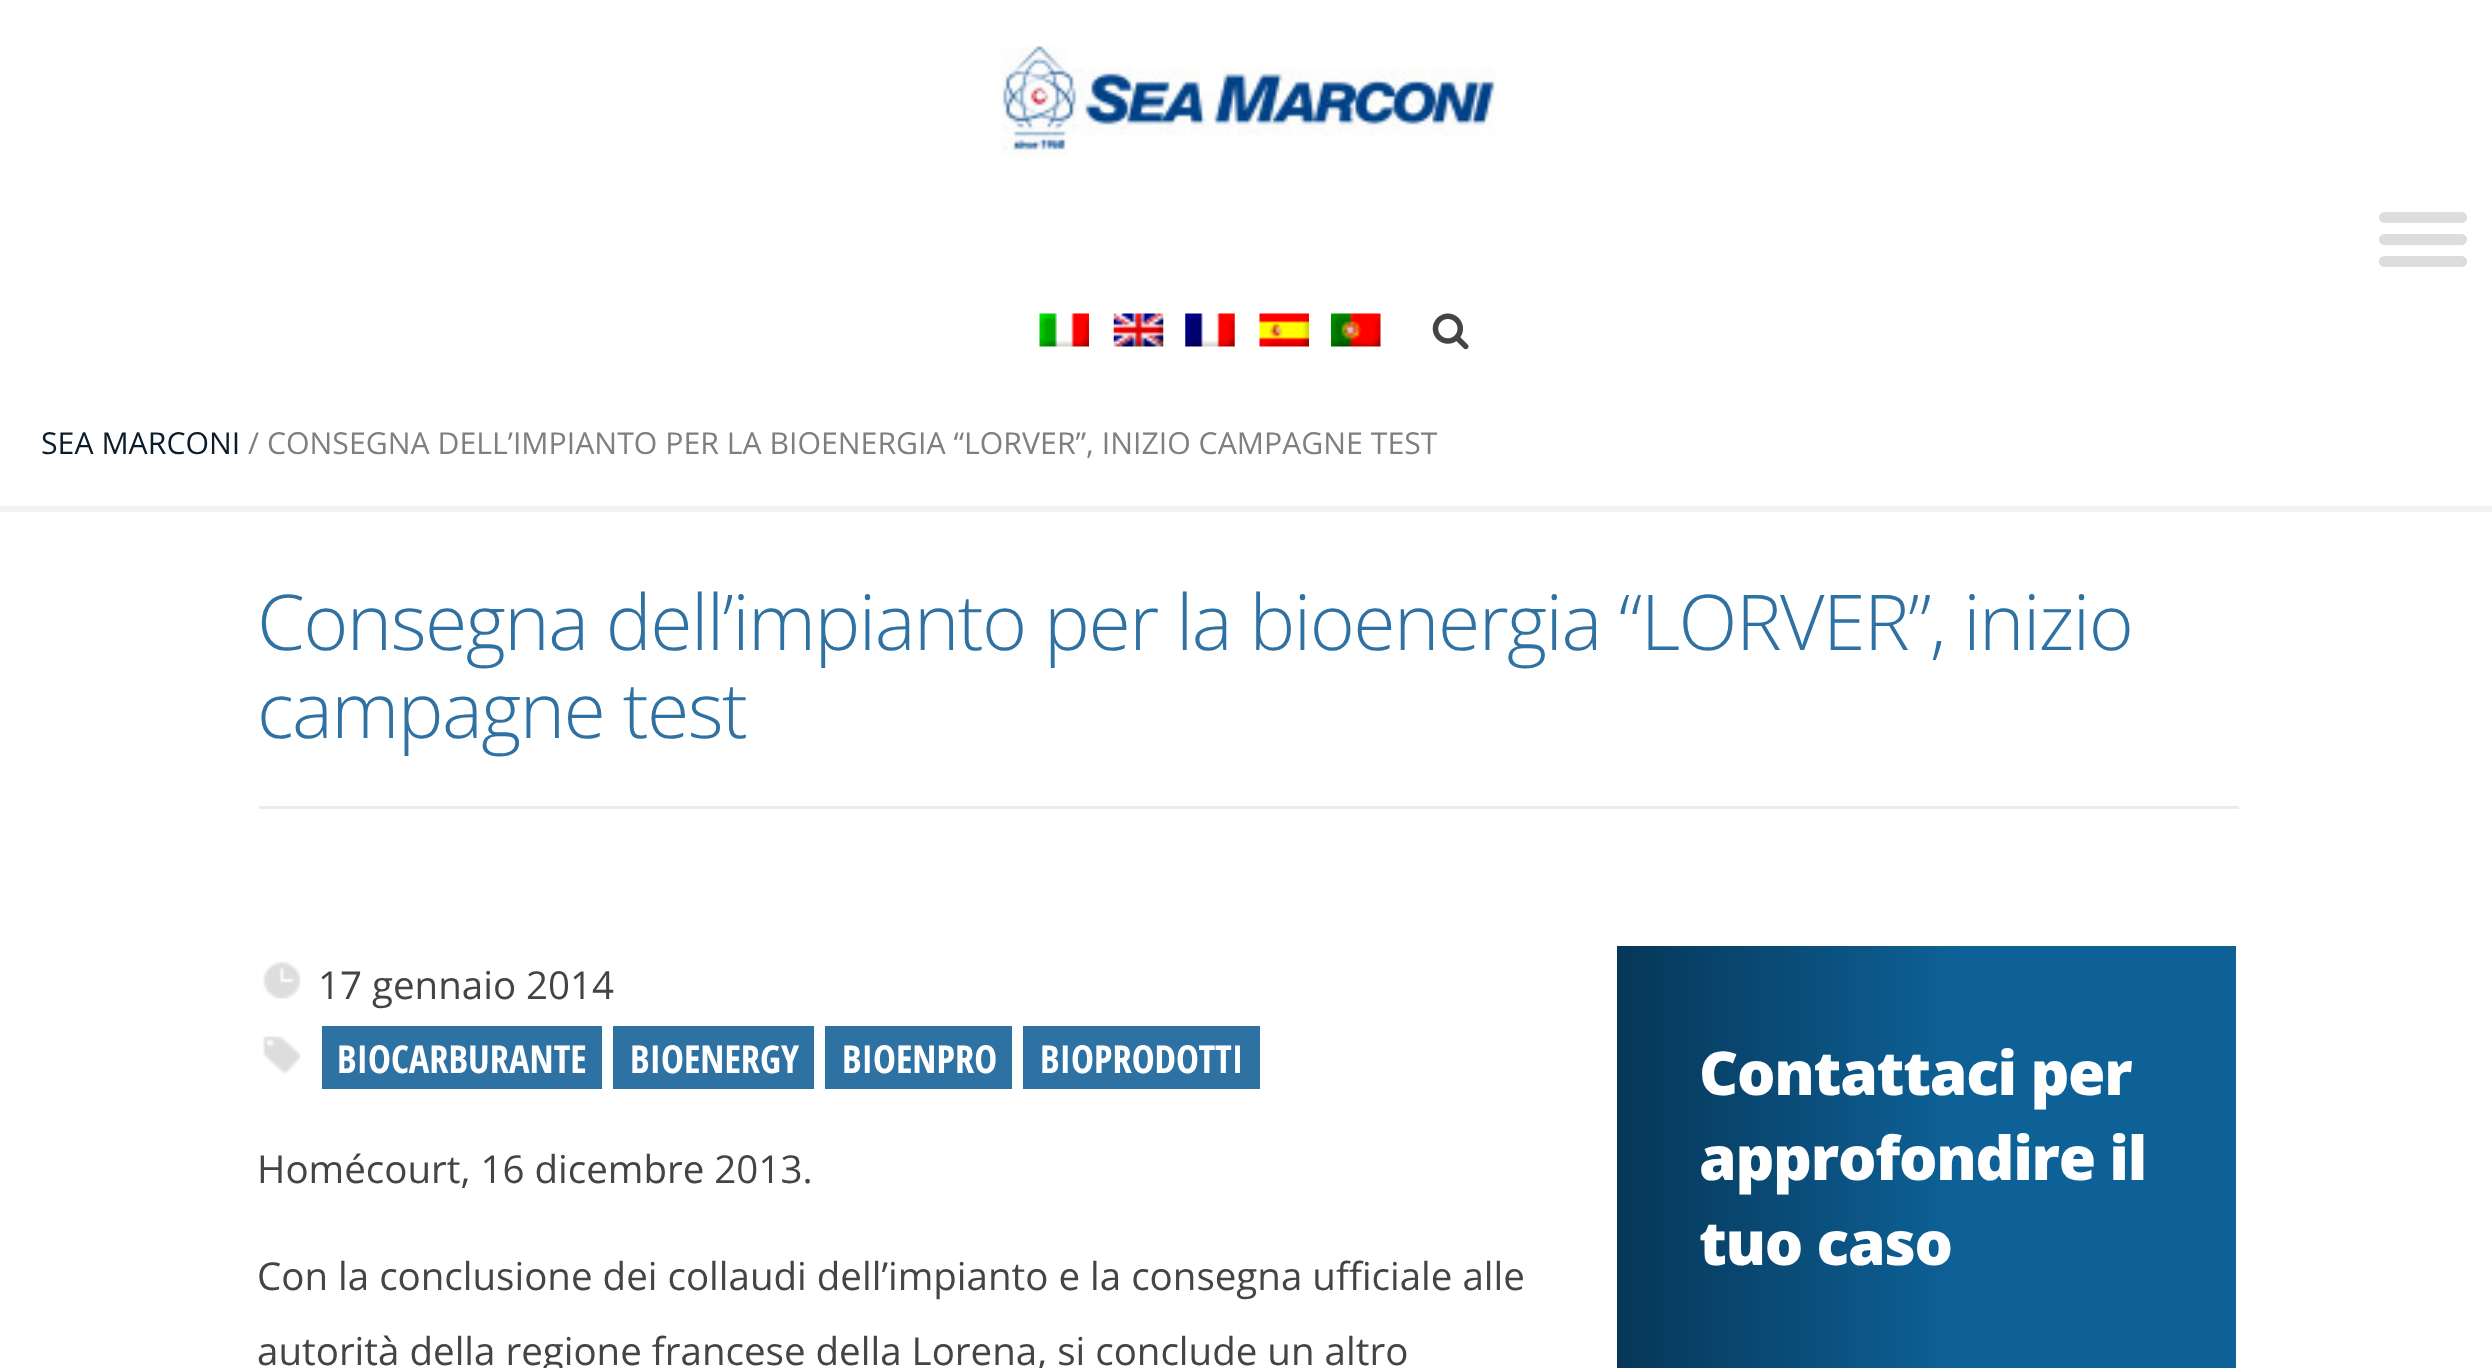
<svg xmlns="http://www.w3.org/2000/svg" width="2492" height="1368">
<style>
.a{font:30.25px Open Sans;fill:#0b1c28}
.b{font:30.25px Open Sans;fill:#7f7f7f}
.c{font:300 77px Open Sans;letter-spacing:-1.55px;fill:#2e71a2}
.d{font:38.5px Open Sans;fill:#444}
.e{font:bold 38.5px Open Sans Condensed;fill:#fff}
.f{font:800 60.5px Open Sans;letter-spacing:-1.25px;fill:#fff}
</style>
<defs>
<linearGradient id="g1" gradientUnits="userSpaceOnUse" x1="1617" y1="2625" x2="2236" y2="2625"><stop offset="0" stop-color="#063758"/><stop offset="0.55" stop-color="#0e6197"/><stop offset="1" stop-color="#0e6197"/></linearGradient>
</defs>
<rect width="100%" height="100%" fill="#fff"/>
<path fill="none" stroke="#f2f2f2" stroke-width="3" d="M-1.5 -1.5h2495v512H-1.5z"/>
<image href="1.png" x="1001" y="46" width="495" height="111"/>
<rect fill="#ddd" x="2379" y="212" width="88" height="11" rx="5.5"/>
<rect fill="#ddd" x="2379" y="234" width="88" height="11" rx="5.5"/>
<rect fill="#ddd" x="2379" y="256" width="88" height="11" rx="5.5"/>
<image href="2.png" x="1039" y="313" width="50" height="34"/>
<image href="3.png" x="1113" y="313" width="51" height="34"/>
<image href="4.png" x="1185" y="313" width="50" height="34"/>
<image href="5.png" x="1259" y="313" width="50" height="34"/>
<image href="6.png" x="1331" y="313" width="50" height="34"/>
<image href="7.png" x="1432" y="313" width="37" height="37"/>
<path fill="#f2f2f2" d="M0 506h2492v3H0z"/>
<path fill="#ebebeb" d="M259 806h1980v3H259z"/>
<image href="8.png" x="263" y="961" width="38" height="38"/>
<image href="9.png" x="263" y="1036" width="38" height="38"/>
<path fill="#2e72a3" d="M322 1026h280v63H322z"/>
<path fill="#2e72a3" d="M613 1026h201v63H613z"/>
<path fill="#2e72a3" d="M825 1026h187v63H825z"/>
<path fill="#2e72a3" d="M1023 1026h237v63H1023z"/>
<path fill="url(#g1)" d="M1617 946h619v422H1617z"/>
<text class="a" x="41" y="454">SEA MARCONI</text>
<text class="b" x="248" y="454">/ CONSEGNA DELL’IMPIANTO PER LA BIOENERGIA “LORVER”, INIZIO CAMPAGNE TEST</text>
<text class="c" x="257" y="650">Consegna dell’impianto per la bioenergia “LORVER”, inizio</text>
<text class="c" x="257" y="738">campagne test</text>
<text class="d" x="318" y="999">17 gennaio 2014</text>
<text class="e" x="337" y="1073">BIOCARBURANTE</text>
<text class="e" x="630" y="1073">BIOENERGY</text>
<text class="e" x="842" y="1073">BIOENPRO</text>
<text class="e" x="1040" y="1073">BIOPRODOTTI</text>
<text class="d" x="257" y="1183">Homécourt, 16 dicembre 2013.</text>
<text class="d" x="257" y="1290">Con la conclusione dei collaudi dell’impianto e la consegna ufficiale alle</text>
<text class="d" x="257" y="1365">autorità della regione francese della Lorena, si conclude un altro</text>
<text class="f" x="1699" y="1095">Contattaci per</text>
<text class="f" x="1699" y="1180">approfondire il</text>
<text class="f" x="1699" y="1265">tuo caso</text>
</svg>
